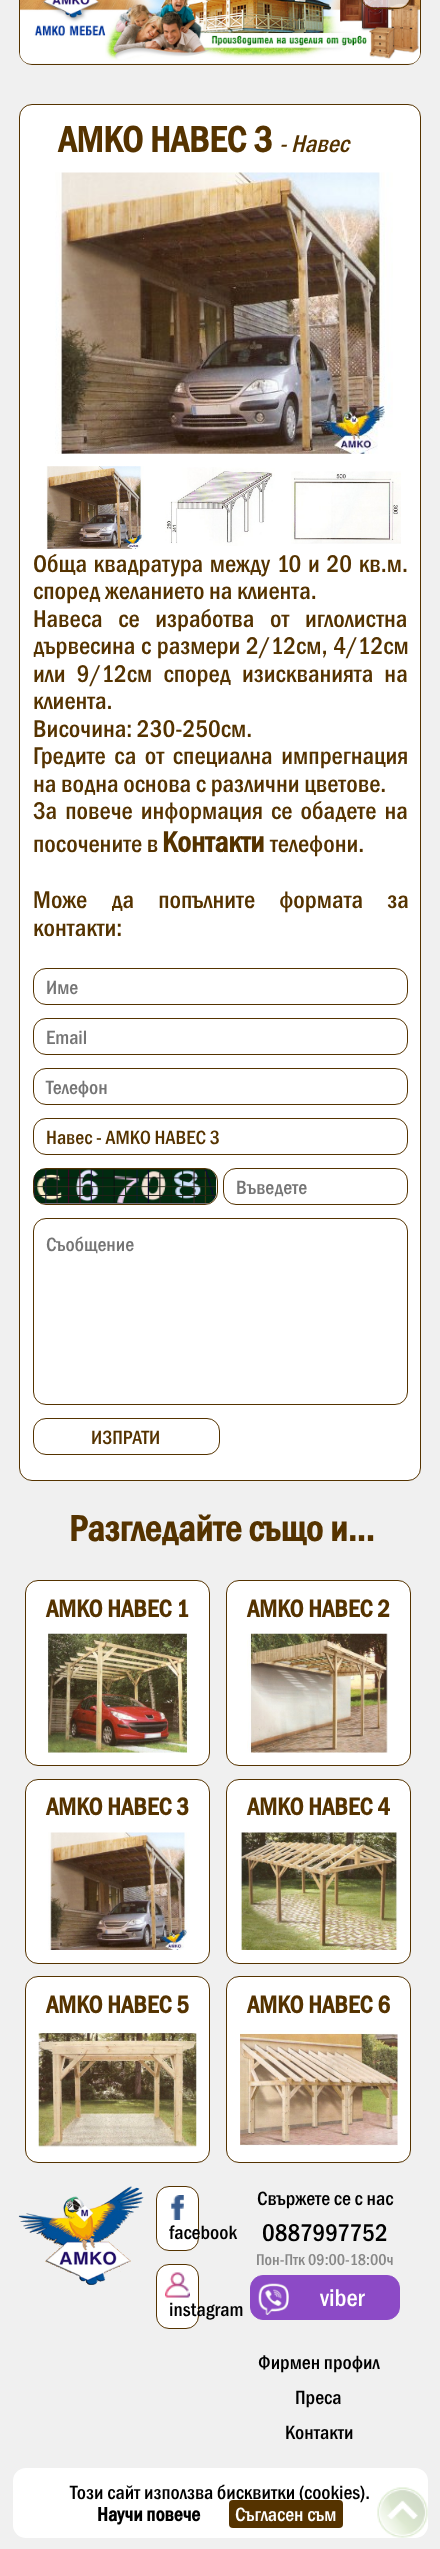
<svg xmlns="http://www.w3.org/2000/svg" width="440" height="2549">
<style>
.a{font:bold 37.5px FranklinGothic;fill:#530}
.b{font:italic 500 25px FranklinGothic;fill:#530}
.c{font:500 25px FranklinGothic;fill:#530}
.d{font:bold 30px FranklinGothic;fill:#530}
.e{font:500 20px FranklinGothic;fill:#757575}
.f{font:500 20px FranklinGothic;fill:#530}
.g{font:bold 25px FranklinGothic;fill:#530}
.h{font:500 20px FranklinGothic;fill:#000}
.i{font:500 25px FranklinGothic;fill:#000}
.j{font:500 16.25px FranklinGothic;fill:#888}
.k{font:500 25px FranklinGothic;fill:#fff}
.l{font:bold 20px FranklinGothic;fill:#000}
.m{font:500 20px FranklinGothic;fill:#fff}
</style>
<rect width="100%" height="100%" fill="#f0f0f0"/>
<rect fill="none" stroke="#530" x="19.5" y="-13.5" width="401" height="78" rx="12.5"/>
<image href="2.png" x="20" y="0" width="400" height="64"/>
<rect fill="none" stroke="#530" x="361.5" y="-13.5" width="49" height="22" rx="12.5"/>
<image href="1.png" x="363" y="0" width="46" height="8"/>
<rect fill="#fff" stroke="#530" x="19.5" y="104.5" width="401" height="1376" rx="12.5"/>
<image href="3.png" x="55" y="172" width="338" height="282"/>
<image href="4.png" x="46" y="466" width="98" height="83"/>
<image href="5.png" x="165" y="467" width="110" height="79"/>
<image href="6.png" x="291" y="471" width="110" height="73"/>
<rect fill="none" stroke="#530" x="33.5" y="968.5" width="374" height="36" rx="12.5"/>
<rect fill="none" stroke="#530" x="33.5" y="1018.5" width="374" height="36" rx="12.5"/>
<rect fill="none" stroke="#530" x="33.5" y="1068.5" width="374" height="36" rx="12.5"/>
<rect fill="none" stroke="#530" x="33.5" y="1118.5" width="374" height="36" rx="12.5"/>
<rect fill="none" stroke="#530" x="33.5" y="1168.5" width="184" height="36" rx="12.5"/>
<image href="7.png" x="33" y="1168" width="184" height="36"/>
<rect fill="none" stroke="#530" x="223.5" y="1168.5" width="184" height="36" rx="12.5"/>
<rect fill="none" stroke="#530" x="33.5" y="1218.5" width="374" height="186" rx="12.5"/>
<rect fill="none" stroke="#530" x="33.5" y="1418.5" width="186" height="36" rx="12.5"/>
<rect fill="#fff" stroke="#530" x="25.5" y="1580.5" width="184" height="185" rx="12.5"/>
<image href="8.png" x="47" y="1633" width="143" height="120"/>
<rect fill="#fff" stroke="#530" x="226.5" y="1580.5" width="184" height="185" rx="12.5"/>
<image href="9.png" x="247" y="1633" width="141" height="120"/>
<rect fill="#fff" stroke="#530" x="25.5" y="1779.5" width="184" height="184" rx="12.5"/>
<image href="10.png" x="48" y="1832" width="142" height="118"/>
<rect fill="#fff" stroke="#530" x="226.5" y="1779.5" width="184" height="184" rx="12.5"/>
<image href="11.png" x="240" y="1832" width="158" height="118"/>
<rect fill="#fff" stroke="#530" x="25.5" y="1976.5" width="184" height="186" rx="12.5"/>
<image href="12.png" x="38" y="2030" width="159" height="118"/>
<rect fill="#fff" stroke="#530" x="226.5" y="1976.5" width="184" height="186" rx="12.5"/>
<image href="13.png" x="240" y="2030" width="158" height="116"/>
<image href="14.png" x="18" y="2186" width="126" height="99"/>
<rect fill="#fff" stroke="#530" x="156.5" y="2186.5" width="42" height="64" rx="12.5"/>
<image href="15.png" x="171" y="2195" width="13" height="25"/>
<rect fill="#fff" stroke="#530" x="156.5" y="2264.5" width="42" height="64" rx="12.5"/>
<image href="16.png" x="165" y="2272" width="25" height="26"/>
<rect fill="#8c4ac6" stroke="#8c4ac6" x="250.5" y="2275.5" width="149" height="44" rx="12.5"/>
<image href="17.png" x="258" y="2283" width="31" height="32"/>
<rect fill="#fff" x="13" y="2468" width="415" height="70" rx="13"/>
<image href="18.png" x="377" y="2487" width="51" height="51"/>
<text class="a" x="58" y="152">АМКО НАВЕС 3</text>
<text class="b" x="279" y="152">- Навес</text>
<text class="c" x="33" y="572" word-spacing="2">Обща квадратура между 10 и 20 кв.м.</text>
<text class="c" x="33" y="599">според желанието на клиента.</text>
<text class="c" x="33" y="627" word-spacing="11">Навеса се изработва от иглолистна</text>
<text class="c" x="33" y="654" word-spacing="1">дървесина с размери 2/12см, 4/12см</text>
<text class="c" x="33" y="682" word-spacing="6.5">или 9/12см според изискванията на</text>
<text class="c" x="33" y="709">клиента.</text>
<text class="c" x="33" y="737">Височина: 230-250см.</text>
<text class="c" x="33" y="764" word-spacing="4">Гредите са от специална импрегнация</text>
<text class="c" x="33" y="792">на водна основа с различни цветове.</text>
<text class="c" x="33" y="819" word-spacing="3.5">За повече информация се обадете на</text>
<text class="c" x="33" y="852">посочените в</text>
<text class="d" x="162" y="852">Контакти</text>
<text class="c" x="270" y="852">телефони.</text>
<text class="c" x="33" y="908" word-spacing="19.5">Може да попълните формата за</text>
<text class="c" x="33" y="936">контакти:</text>
<text class="e" x="46" y="994">Име</text>
<text class="e" x="46" y="1044">Email</text>
<text class="e" x="46" y="1094">Телефон</text>
<text class="f" x="46" y="1144">Навес - АМКО НАВЕС 3</text>
<text class="e" x="236" y="1194">Въведете</text>
<text class="e" x="46" y="1251">Съобщение</text>
<text class="f" x="91" y="1444">ИЗПРАТИ</text>
<text class="a" x="69" y="1541">Разгледайте също и...</text>
<text class="g" x="46" y="1617">АМКО НАВЕС 1</text>
<text class="g" x="247" y="1617">АМКО НАВЕС 2</text>
<text class="g" x="46" y="1815">АМКО НАВЕС 3</text>
<text class="g" x="247" y="1815">АМКО НАВЕС 4</text>
<text class="g" x="46" y="2013">АМКО НАВЕС 5</text>
<text class="g" x="247" y="2013">АМКО НАВЕС 6</text>
<text class="h" x="169" y="2239">facebook</text>
<text class="h" x="169" y="2316">instagram</text>
<text class="h" x="257" y="2205">Свържете се с нас</text>
<text class="i" x="262" y="2241">0887997752</text>
<text class="j" x="256" y="2265">Пон-Птк 09:00-18:00ч</text>
<text class="k" x="320" y="2306">viber</text>
<text class="h" x="258" y="2369">Фирмен профил</text>
<text class="h" x="295" y="2404">Преса</text>
<text class="h" x="285" y="2439">Контакти</text>
<text class="h" x="70" y="2499">Този сайт използва бисквитки (cookies).</text>
<text class="l" x="97" y="2521">Научи повече</text>
<rect fill="#530" x="229" y="2500" width="114" height="28" rx="4"/>
<text class="m" x="235" y="2521">Съгласен съм</text>
</svg>
